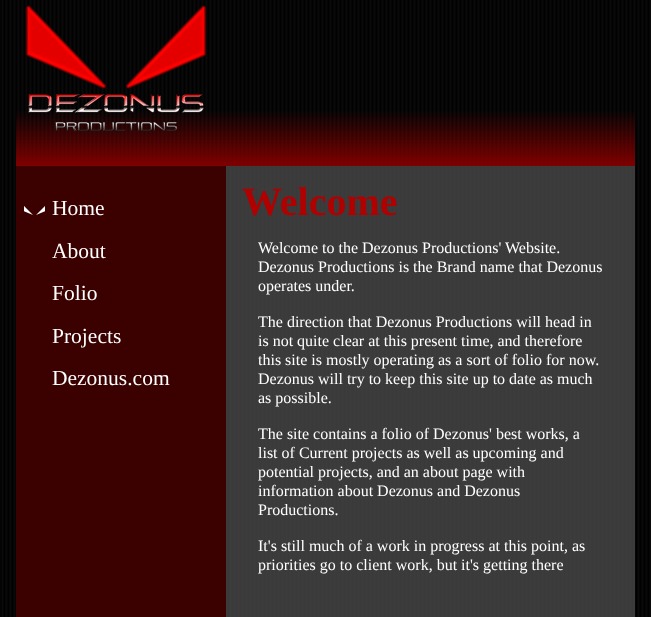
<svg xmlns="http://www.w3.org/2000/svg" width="651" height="617">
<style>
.a{font:21.5px Liberation Serif;fill:#fff}
.b{font:bold 40px Liberation Serif;fill:#b00000}
.c{font:16px Liberation Serif;fill:#fff}
</style>
<rect width="100%" height="100%" fill="#040404"/>
<image href="1.png" x="2" y="0" width="649" height="617"/>
<image href="2.png" x="25" y="5" width="182" height="126"/>
<path fill="#3b0000" d="M16 166h210v451H16z"/>
<image href="3.png" x="24" y="206" width="21" height="9"/>
<path fill="#4d4d4dbf" d="M226 166h409v451H226z"/>
<text class="a" x="52" y="215">Home</text>
<text class="a" x="52" y="258">About</text>
<text class="a" x="52" y="300">Folio</text>
<text class="a" x="52" y="343">Projects</text>
<text class="a" x="52" y="385">Dezonus.com</text>
<text class="b" x="242" y="215">Welcome</text>
<text class="c" x="258" y="253">Welcome to the Dezonus Productions' Website.</text>
<text class="c" x="258" y="272">Dezonus Productions is the Brand name that Dezonus</text>
<text class="c" x="258" y="291">operates under.</text>
<text class="c" x="258" y="327">The direction that Dezonus Productions will head in</text>
<text class="c" x="258" y="346">is not quite clear at this present time, and therefore</text>
<text class="c" x="258" y="365">this site is mostly operating as a sort of folio for now.</text>
<text class="c" x="258" y="384">Dezonus will try to keep this site up to date as much</text>
<text class="c" x="258" y="403">as possible.</text>
<text class="c" x="258" y="439">The site contains a folio of Dezonus' best works, a</text>
<text class="c" x="258" y="458">list of Current projects as well as upcoming and</text>
<text class="c" x="258" y="477">potential projects, and an about page with</text>
<text class="c" x="258" y="496">information about Dezonus and Dezonus</text>
<text class="c" x="258" y="515">Productions.</text>
<text class="c" x="258" y="551">It's still much of a work in progress at this point, as</text>
<text class="c" x="258" y="570">priorities go to client work, but it's getting there</text>
</svg>
